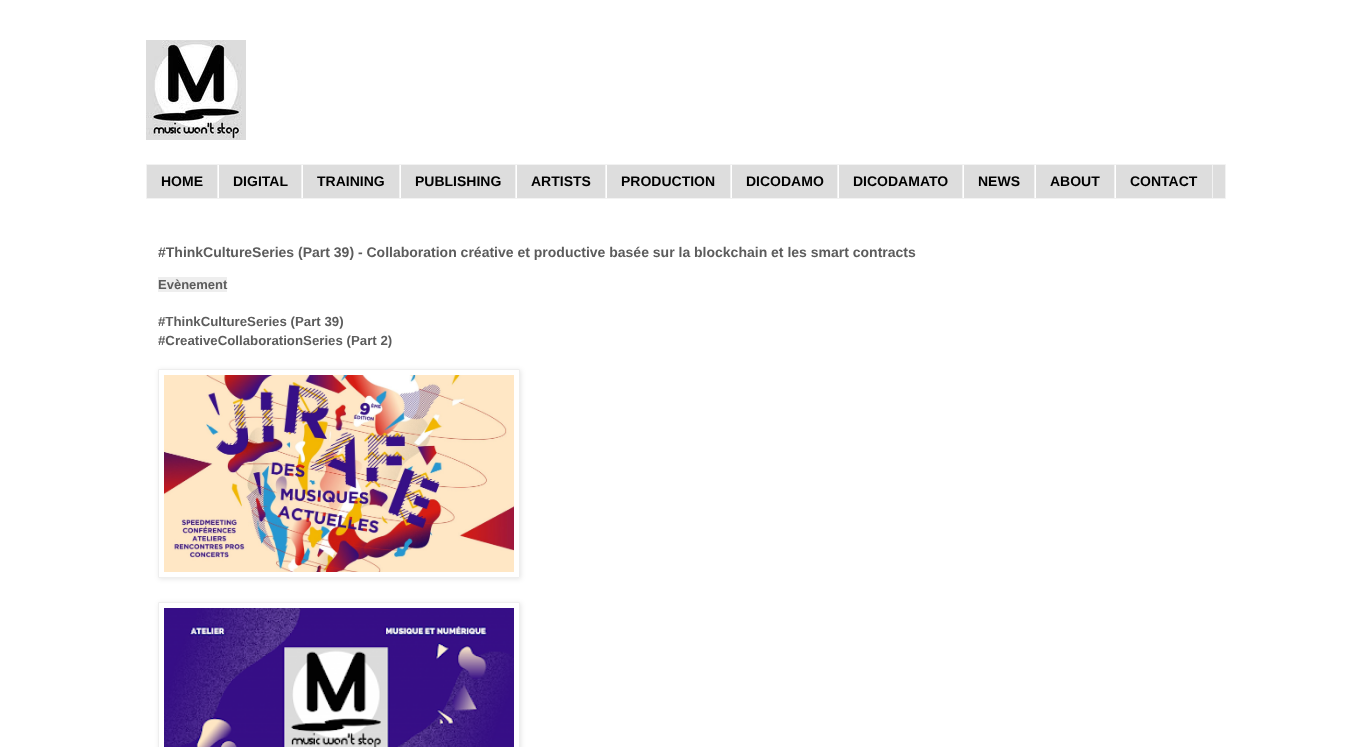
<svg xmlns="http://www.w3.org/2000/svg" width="1371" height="747">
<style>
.a{font:bold 14px Liberation Sans;fill:#000}
.b{font:bold 14px Liberation Sans;fill:#5c5c5c}
.c{font:bold 13px Liberation Sans;fill:#5c5c5c}
.d{font:bold 13.25px Liberation Sans;fill:#5c5c5c}
</style>
<defs>
<clipPath id="clip1"><path d="M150 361h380v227h-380zm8 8h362v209h-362z" clip-rule="evenodd"/></clipPath>
<clipPath id="clip2"><path d="M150 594h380v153h-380zm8 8h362v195h-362z" clip-rule="evenodd"/></clipPath>
</defs>
<rect width="100%" height="100%" fill="#fff"/>
<image href="1.png" x="146" y="40" width="100" height="100"/>
<path fill="#ddd" stroke="#f2f2f2" d="M146.5 164.5h1079v34H146.5z"/>
<path fill="#f2f2f2" d="M217 165h1v33H217z"/>
<path fill="#f2f2f2" d="M301 165h1v33H301z"/>
<path fill="#fff" d="M218 165h1v33H218z"/>
<path fill="#f2f2f2" d="M399 165h1v33H399z"/>
<path fill="#fff" d="M302 165h1v33H302z"/>
<path fill="#f2f2f2" d="M515 165h1v33H515z"/>
<path fill="#fff" d="M400 165h1v33H400z"/>
<path fill="#f2f2f2" d="M605 165h1v33H605z"/>
<path fill="#fff" d="M516 165h1v33H516z"/>
<path fill="#f2f2f2" d="M730 165h1v33H730z"/>
<path fill="#fff" d="M606 165h1v33H606z"/>
<path fill="#f2f2f2" d="M837 165h1v33H837z"/>
<path fill="#fff" d="M731 165h1v33H731z"/>
<path fill="#f2f2f2" d="M962 165h1v33H962z"/>
<path fill="#fff" d="M838 165h1v33H838z"/>
<path fill="#f2f2f2" d="M1034 165h1v33H1034z"/>
<path fill="#fff" d="M963 165h1v33H963z"/>
<path fill="#f2f2f2" d="M1114 165h1v33H1114z"/>
<path fill="#fff" d="M1035 165h1v33H1035z"/>
<path fill="#f2f2f2" d="M1212 165h1v33H1212z"/>
<path fill="#fff" d="M1115 165h1v33H1115z"/>
<path fill="#eee" d="M158 277h69v15H158z"/>
<g clip-path="url(#clip1)">
<path fill="#0000001a" filter="blur(2.5px)" d="M159 370h362v209H159z"/>
</g>
<path fill="none" stroke="#eee" d="M158.5 369.5h361v208H158.5z"/>
<image href="2.png" x="164" y="375" width="350" height="197"/>
<g clip-path="url(#clip2)">
<path fill="#0000001a" filter="blur(2.5px)" d="M159 603h362v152H159z"/>
</g>
<path fill="none" stroke="#eee" d="M158.5 602.5h361v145H158.5z"/>
<image href="3.png" x="164" y="608" width="350" height="139"/>
<text class="a" x="161" y="186">HOME</text>
<text class="a" x="233" y="186">DIGITAL</text>
<text class="a" x="317" y="186">TRAINING</text>
<text class="a" x="415" y="186">PUBLISHING</text>
<text class="a" x="531" y="186">ARTISTS</text>
<text class="a" x="621" y="186">PRODUCTION</text>
<text class="a" x="746" y="186">DICODAMO</text>
<text class="a" x="853" y="186">DICODAMATO</text>
<text class="a" x="978" y="186">NEWS</text>
<text class="a" x="1050" y="186">ABOUT</text>
<text class="a" x="1130" y="186">CONTACT</text>
<text class="b" x="158" y="257">#ThinkCultureSeries (Part 39) - Collaboration créative et productive basée sur la blockchain et les smart contracts</text>
<text class="c" x="158" y="289">Evènement</text>
<text class="d" x="158" y="326">#ThinkCultureSeries (Part 39)</text>
<text class="d" x="158" y="345">#CreativeCollaborationSeries (Part 2)</text>
</svg>
